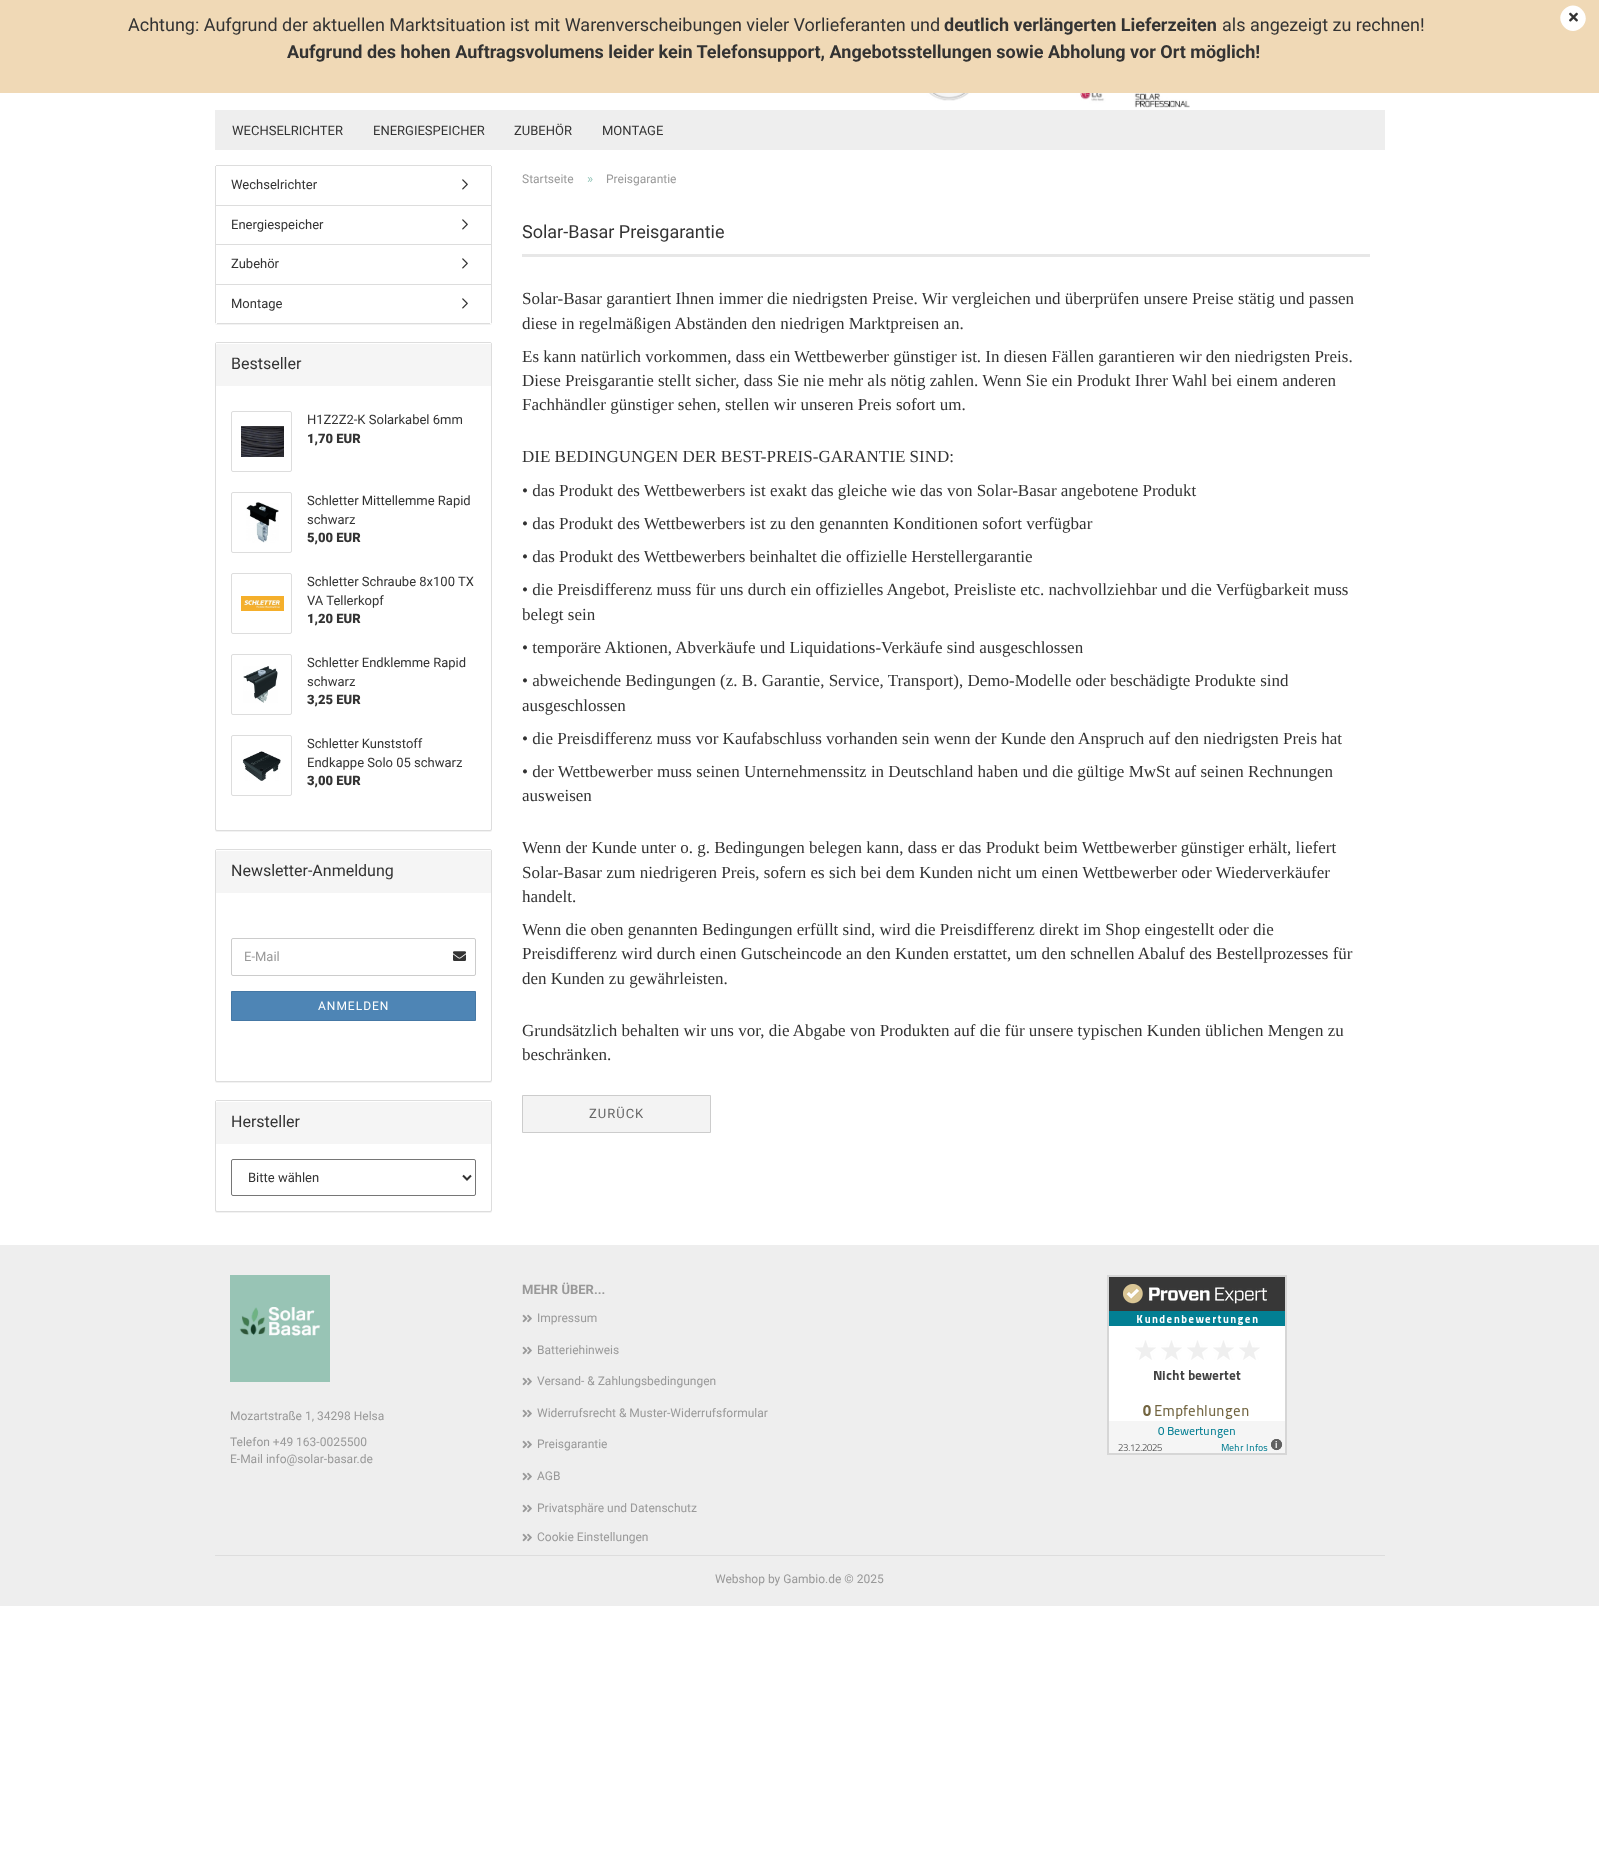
<svg xmlns="http://www.w3.org/2000/svg" width="1599" height="1855">
<style>
.a{font:18px Roboto;fill:#333}
.b{font:bold 18px Roboto;fill:#333}
.c{font:13px Roboto;fill:#333}
.d{font:16px Roboto;fill:#333}
.e{font:900 13px Roboto;fill:#333}
.f{font:13px Roboto;fill:#999}
.g{font:12px Roboto;letter-spacing:1px;fill:#fff}
.h{font:12px Roboto;fill:#999}
.i{font:13px Roboto;fill:#97c7bb}
.j{font:17px Liberation Serif;fill:#333}
.k{font:13px Roboto;letter-spacing:1px;fill:#666}
.l{font:bold 13px Roboto;fill:#999}
</style>
<rect width="100%" height="100%" fill="#fff"/>
<path fill="#f0d9b6" d="M0 0h1599v93H0z"/>
<path fill="#fff" d="M1564 9.5c12-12 29.5 6 18 17.5c-12 12-29.5-6-18-17.5z"/>
<image href="1.png" x="1569" y="12" width="9" height="10"/>
<image href="2.png" x="920" y="93" width="270" height="15"/>
<path fill="#eee" d="M215 110h1170v40H215z"/>
<rect fill="#0000000d" filter="blur(0.5px)" x="215" y="166" width="277" height="159" rx="2"/>
<rect fill="#fff" x="215" y="165" width="277" height="159" rx="2"/>
<path fill="#ddd" d="M216 165h275v1H216z"/>
<path fill="#ddd" d="M491 166h1v157H491z"/>
<path fill="#ddd" d="M215 166h1v157H215z"/>
<path fill="#ddd" d="M216 205h275v1H216z"/>
<image href="3.png" x="462" y="179" width="6" height="11"/>
<path fill="#ddd" d="M216 244h275v1H216z"/>
<image href="3.png" x="462" y="219" width="6" height="11"/>
<path fill="#ddd" d="M216 284h275v1H216z"/>
<image href="3.png" x="462" y="258" width="6" height="11"/>
<path fill="#ddd" d="M217 323h273v1H217z"/>
<image href="3.png" x="462" y="298" width="6" height="11"/>
<rect fill="#0000000d" filter="blur(0.5px)" x="215" y="343" width="277" height="489" rx="2"/>
<rect fill="#fff" stroke="#ddd" x="215.5" y="342.5" width="276" height="488" rx="1.5"/>
<path fill="#f5f5f5" d="M217 343h273c.5 0 1 .5 1 1v42h-275v-42c0-.5 .5-1 1-1z"/>
<path fill="#fff" d="M217 344h273c1 0 1 0 1 1c0-1 0-2-1-2h-273h-1v2z"/>
<rect fill="none" stroke="#ddd" x="231.5" y="411.5" width="60" height="60" rx="1.5"/>
<image href="4.png" x="241" y="426" width="43" height="31"/>
<rect fill="none" stroke="#ddd" x="231.5" y="492.5" width="60" height="60" rx="1.5"/>
<image href="5.png" x="246" y="502" width="33" height="41"/>
<rect fill="none" stroke="#ddd" x="231.5" y="573.5" width="60" height="60" rx="1.5"/>
<image href="6.png" x="241" y="596" width="43" height="15"/>
<rect fill="none" stroke="#ddd" x="231.5" y="654.5" width="60" height="60" rx="1.5"/>
<image href="7.png" x="243" y="666" width="35" height="37"/>
<rect fill="none" stroke="#ddd" x="231.5" y="735.5" width="60" height="60" rx="1.5"/>
<image href="8.png" x="242" y="751" width="39" height="30"/>
<rect fill="#0000000d" filter="blur(0.5px)" x="215" y="850" width="277" height="233" rx="2"/>
<rect fill="#fff" stroke="#ddd" x="215.5" y="849.5" width="276" height="232" rx="1.5"/>
<path fill="#f5f5f5" d="M217 850h273c.5 0 1 .5 1 1v42h-275v-42c0-.5 .5-1 1-1z"/>
<path fill="#fff" d="M217 851h273c1 0 1 0 1 1c0-1 0-2-1-2h-273h-1v2z"/>
<rect fill="none" stroke="#ccc" x="231.5" y="938.5" width="244" height="37" rx="1.5"/>
<image href="9.png" x="453" y="951" width="13" height="10"/>
<path fill="#4e85b5" stroke="#4578a5" d="M231.5 991.5h244v29H231.5z"/>
<rect fill="#0000000d" filter="blur(0.5px)" x="215" y="1101" width="277" height="112" rx="2"/>
<rect fill="#fff" stroke="#ddd" x="215.5" y="1100.5" width="276" height="111" rx="1.5"/>
<path fill="#f5f5f5" d="M217 1101h273c.5 0 1 .5 1 1v42h-275v-42c0-.5 .5-1 1-1z"/>
<path fill="#fff" d="M217 1102h273c1 0 1 0 1 1c0-1 0-2-1-2h-273h-1v2z"/>
<rect fill="none" stroke="#767676" x="231.5" y="1159.5" width="244" height="36" rx="1.5"/>
<path fill="none" stroke="#333" stroke-width="2" d="M463 1175.5l4 4l4-4"/>
<path fill="#e7e7e7" d="M522 254h848v3H522z"/>
<path fill="#f3f3f3" stroke="#ccc" d="M522.5 1095.5h188v37H522.5z"/>
<path fill="#eee" d="M0 1245h1599v361H0z"/>
<path fill="#ddd" d="M215 1555h1170v1H215z"/>
<image href="10.png" x="230" y="1275" width="100" height="107"/>
<image href="11.png" x="522" y="1314" width="10" height="9"/>
<image href="11.png" x="522" y="1346" width="10" height="9"/>
<image href="11.png" x="522" y="1377" width="10" height="9"/>
<image href="11.png" x="522" y="1409" width="10" height="9"/>
<image href="11.png" x="522" y="1440" width="10" height="9"/>
<image href="11.png" x="522" y="1472" width="10" height="9"/>
<image href="11.png" x="522" y="1504" width="10" height="9"/>
<image href="11.png" x="522" y="1533" width="10" height="9"/>
<image href="12.png" x="1107" y="1275" width="180" height="180"/>
<text class="a" x="128" y="31">Achtung: Aufgrund der aktuellen Marktsituation ist mit Warenverscheibungen vieler Vorlieferanten und</text>
<text class="b" x="944" y="31">deutlich verlängerten Lieferzeiten</text>
<text class="a" x="1222" y="31">als angezeigt zu rechnen!</text>
<text class="b" x="287" y="58">Aufgrund des hohen Auftragsvolumens leider kein Telefonsupport, Angebotsstellungen sowie Abholung vor Ort möglich!</text>
<text class="c" x="232" y="135">WECHSELRICHTER</text>
<text class="c" x="373" y="135">ENERGIESPEICHER</text>
<text class="c" x="514" y="135">ZUBEHÖR</text>
<text class="c" x="602" y="135">MONTAGE</text>
<text class="c" x="231" y="189">Wechselrichter</text>
<text class="c" x="231" y="229">Energiespeicher</text>
<text class="c" x="231" y="268">Zubehör</text>
<text class="c" x="231" y="308">Montage</text>
<text class="d" x="231" y="369">Bestseller</text>
<text class="c" x="307" y="424">H1Z2Z2-K Solarkabel 6mm</text>
<text class="e" x="307" y="443">1,70 EUR</text>
<text class="c" x="307" y="505">Schletter Mittellemme Rapid</text>
<text class="c" x="307" y="524">schwarz</text>
<text class="e" x="307" y="542">5,00 EUR</text>
<text class="c" x="307" y="586">Schletter Schraube 8x100 TX</text>
<text class="c" x="307" y="605">VA Tellerkopf</text>
<text class="e" x="307" y="623">1,20 EUR</text>
<text class="c" x="307" y="667">Schletter Endklemme Rapid</text>
<text class="c" x="307" y="686">schwarz</text>
<text class="e" x="307" y="704">3,25 EUR</text>
<text class="c" x="307" y="748">Schletter Kunststoff</text>
<text class="c" x="307" y="767">Endkappe Solo 05 schwarz</text>
<text class="e" x="307" y="785">3,00 EUR</text>
<text class="d" x="231" y="876">Newsletter-Anmeldung</text>
<text class="f" x="244" y="961">E-Mail</text>
<text class="g" x="318" y="1010">ANMELDEN</text>
<text class="d" x="231" y="1127">Hersteller</text>
<text class="c" x="248" y="1182">Bitte wählen</text>
<text class="h" x="522" y="183">Startseite</text>
<text class="i" x="587" y="183">»</text>
<text class="h" x="606" y="183">Preisgarantie</text>
<text class="a" x="522" y="238">Solar-Basar Preisgarantie</text>
<text class="j" x="522" y="304">Solar-Basar garantiert Ihnen immer die niedrigsten Preise. Wir vergleichen und überprüfen unsere Preise stätig und passen</text>
<text class="j" x="522" y="329">diese in regelmäßigen Abständen den niedrigen Marktpreisen an.</text>
<text class="j" x="522" y="362">Es kann natürlich vorkommen, dass ein Wettbewerber günstiger ist. In diesen Fällen garantieren wir den niedrigsten Preis.</text>
<text class="j" x="522" y="386">Diese Preisgarantie stellt sicher, dass Sie nie mehr als nötig zahlen. Wenn Sie ein Produkt Ihrer Wahl bei einem anderen</text>
<text class="j" x="522" y="410">Fachhändler günstiger sehen, stellen wir unseren Preis sofort um.</text>
<text class="j" x="522" y="462">DIE BEDINGUNGEN DER BEST-PREIS-GARANTIE SIND:</text>
<text class="j" x="522" y="496">• das Produkt des Wettbewerbers ist exakt das gleiche wie das von Solar-Basar angebotene Produkt</text>
<text class="j" x="522" y="529">• das Produkt des Wettbewerbers ist zu den genannten Konditionen sofort verfügbar</text>
<text class="j" x="522" y="562">• das Produkt des Wettbewerbers beinhaltet die offizielle Herstellergarantie</text>
<text class="j" x="522" y="595">• die Preisdifferenz muss für uns durch ein offizielles Angebot, Preisliste etc. nachvollziehbar und die Verfügbarkeit muss</text>
<text class="j" x="522" y="620">belegt sein</text>
<text class="j" x="522" y="653">• temporäre Aktionen, Abverkäufe und Liquidations-Verkäufe sind ausgeschlossen</text>
<text class="j" x="522" y="686">• abweichende Bedingungen (z. B. Garantie, Service, Transport), Demo-Modelle oder beschädigte Produkte sind</text>
<text class="j" x="522" y="711">ausgeschlossen</text>
<text class="j" x="522" y="744">• die Preisdifferenz muss vor Kaufabschluss vorhanden sein wenn der Kunde den Anspruch auf den niedrigsten Preis hat</text>
<text class="j" x="522" y="777">• der Wettbewerber muss seinen Unternehmenssitz in Deutschland haben und die gültige MwSt auf seinen Rechnungen</text>
<text class="j" x="522" y="801">ausweisen</text>
<text class="j" x="522" y="853">Wenn der Kunde unter o. g. Bedingungen belegen kann, dass er das Produkt beim Wettbewerber günstiger erhält, liefert</text>
<text class="j" x="522" y="878">Solar-Basar zum niedrigeren Preis, sofern es sich bei dem Kunden nicht um einen Wettbewerber oder Wiederverkäufer</text>
<text class="j" x="522" y="902">handelt.</text>
<text class="j" x="522" y="935">Wenn die oben genannten Bedingungen erfüllt sind, wird die Preisdifferenz direkt im Shop eingestellt oder die</text>
<text class="j" x="522" y="959">Preisdifferenz wird durch einen Gutscheincode an den Kunden erstattet, um den schnellen Abaluf des Bestellprozesses für</text>
<text class="j" x="522" y="984">den Kunden zu gewährleisten.</text>
<text class="j" x="522" y="1036">Grundsätzlich behalten wir uns vor, die Abgabe von Produkten auf die für unsere typischen Kunden üblichen Mengen zu</text>
<text class="j" x="522" y="1060">beschränken.</text>
<text class="k" x="589" y="1118">ZURÜCK</text>
<text class="h" x="230" y="1420">Mozartstraße 1, 34298 Helsa</text>
<text class="h" x="230" y="1446">Telefon +49 163-0025500</text>
<text class="h" x="230" y="1463">E-Mail info@solar-basar.de</text>
<text class="l" x="522" y="1294">MEHR ÜBER...</text>
<text class="h" x="537" y="1322">Impressum</text>
<text class="h" x="537" y="1354">Batteriehinweis</text>
<text class="h" x="537" y="1385">Versand- &amp; Zahlungsbedingungen</text>
<text class="h" x="537" y="1417">Widerrufsrecht &amp; Muster-Widerrufsformular</text>
<text class="h" x="537" y="1448">Preisgarantie</text>
<text class="h" x="537" y="1480">AGB</text>
<text class="h" x="537" y="1512">Privatsphäre und Datenschutz</text>
<text class="h" x="537" y="1541">Cookie Einstellungen</text>
<text class="h" x="715" y="1583">Webshop by Gambio.de © 2025</text>
</svg>
